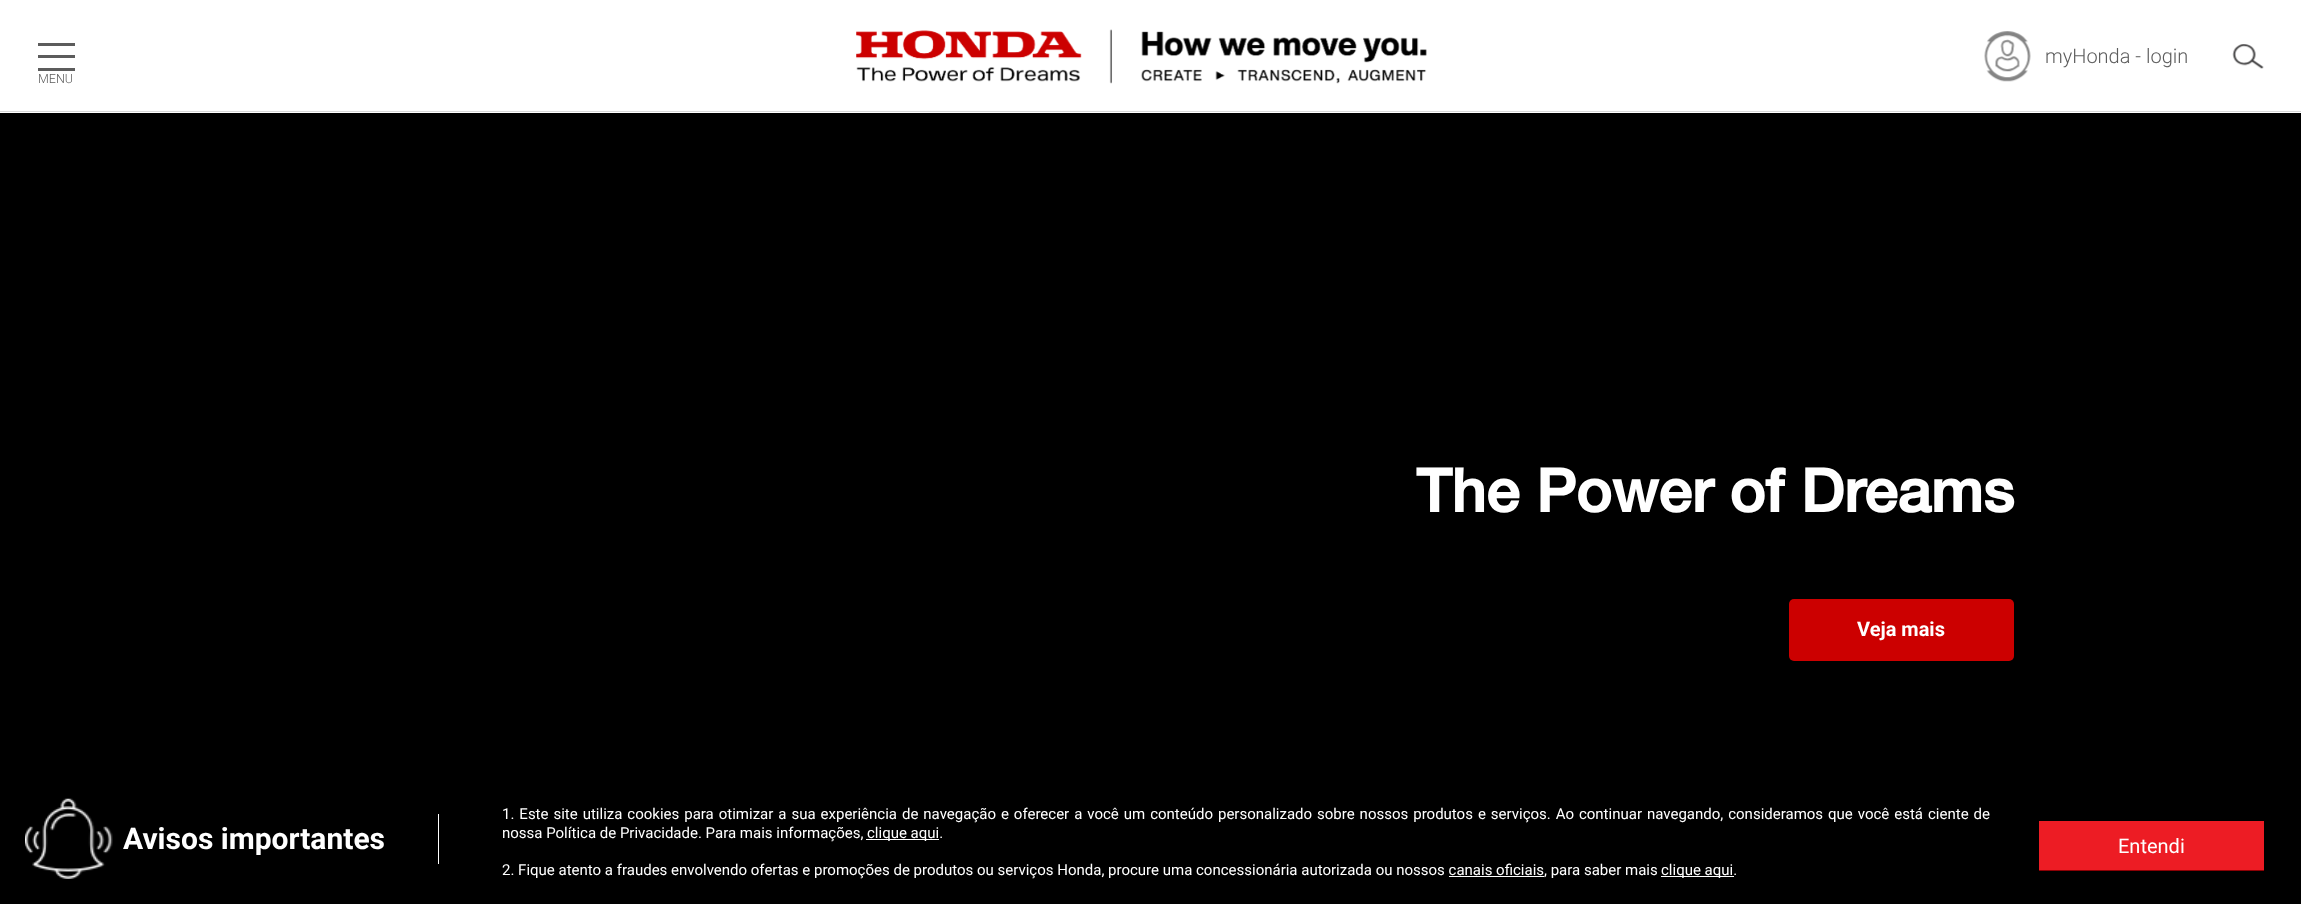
<svg xmlns="http://www.w3.org/2000/svg" width="2301" height="904">
<style>
.a{font:300 20px Roboto;fill:#5c5c5c}
.b{font:300 12.5px Roboto;fill:#5c5c5c}
.c{font:bold 60px Helvetica Neue;fill:#fff}
.d{font:bold 20px Roboto;fill:#fff}
.e{font:bold 30px Roboto;fill:#fff}
.f{font:15px Roboto;fill:#fff}
.g{font:20px Roboto;fill:#fff}
</style>
<rect width="100%" height="100%" fill="#fff"/>
<path fill="#d8d8d8" d="M0 111h2301v1H0z"/>
<image href="1.png" x="1984" y="31" width="47" height="51"/>
<image href="2.png" x="2232" y="44" width="32" height="25"/>
<path fill="#5c5c5c" d="M38 55h37v3H38z"/>
<path fill="#5c5c5c" d="M38 43h37v3H38z"/>
<path fill="#5c5c5c" d="M38 68h37v3H38z"/>
<image href="3.png" x="856" y="29" width="571" height="55"/>
<path fill="#000" d="M0 113h2301v791H0z"/>
<rect fill="#c00" x="1789" y="599" width="225" height="62" rx="5"/>
<image href="4.png" x="25" y="798" width="88" height="81"/>
<path fill="#fff" d="M438 814h1v50H438z"/>
<path fill="#fff" d="M866 839h73v1H866z"/>
<path fill="#fff" d="M1661 876h73v1H1661z"/>
<path fill="#fff" d="M1449 876h95v1H1449z"/>
<path fill="#ed1c24" d="M2039 821h225v49H2039z"/>
<path fill="#8d0005" d="M2039 870h225v1H2039z"/>
<text class="a" x="2045" y="63">myHonda - login</text>
<text class="b" x="38" y="83">MENU</text>
<text class="c" x="1416" y="512">The Power of Dreams</text>
<text class="d" x="1857" y="636">Veja mais</text>
<text class="e" x="123" y="849">Avisos importantes</text>
<text class="f" x="502" y="819" word-spacing="1.25">1. Este site utiliza cookies para otimizar a sua experiência de navegação e oferecer a você um conteúdo personalizado sobre nossos produtos e serviços. Ao continuar navegando, consideramos que você está ciente de</text>
<text class="f" x="502" y="838">nossa Política de Privacidade. Para mais informações,</text>
<text class="f" x="867" y="838">clique aqui.</text>
<text class="f" x="502" y="875">2. Fique atento a fraudes envolvendo ofertas e promoções de produtos ou serviços Honda, procure uma concessionária autorizada ou nossos canais oficiais</text>
<text class="f" x="1544" y="875">, para saber mais</text>
<text class="f" x="1661" y="875">clique aqui.</text>
<text class="g" x="2118" y="853">Entendi</text>
</svg>
